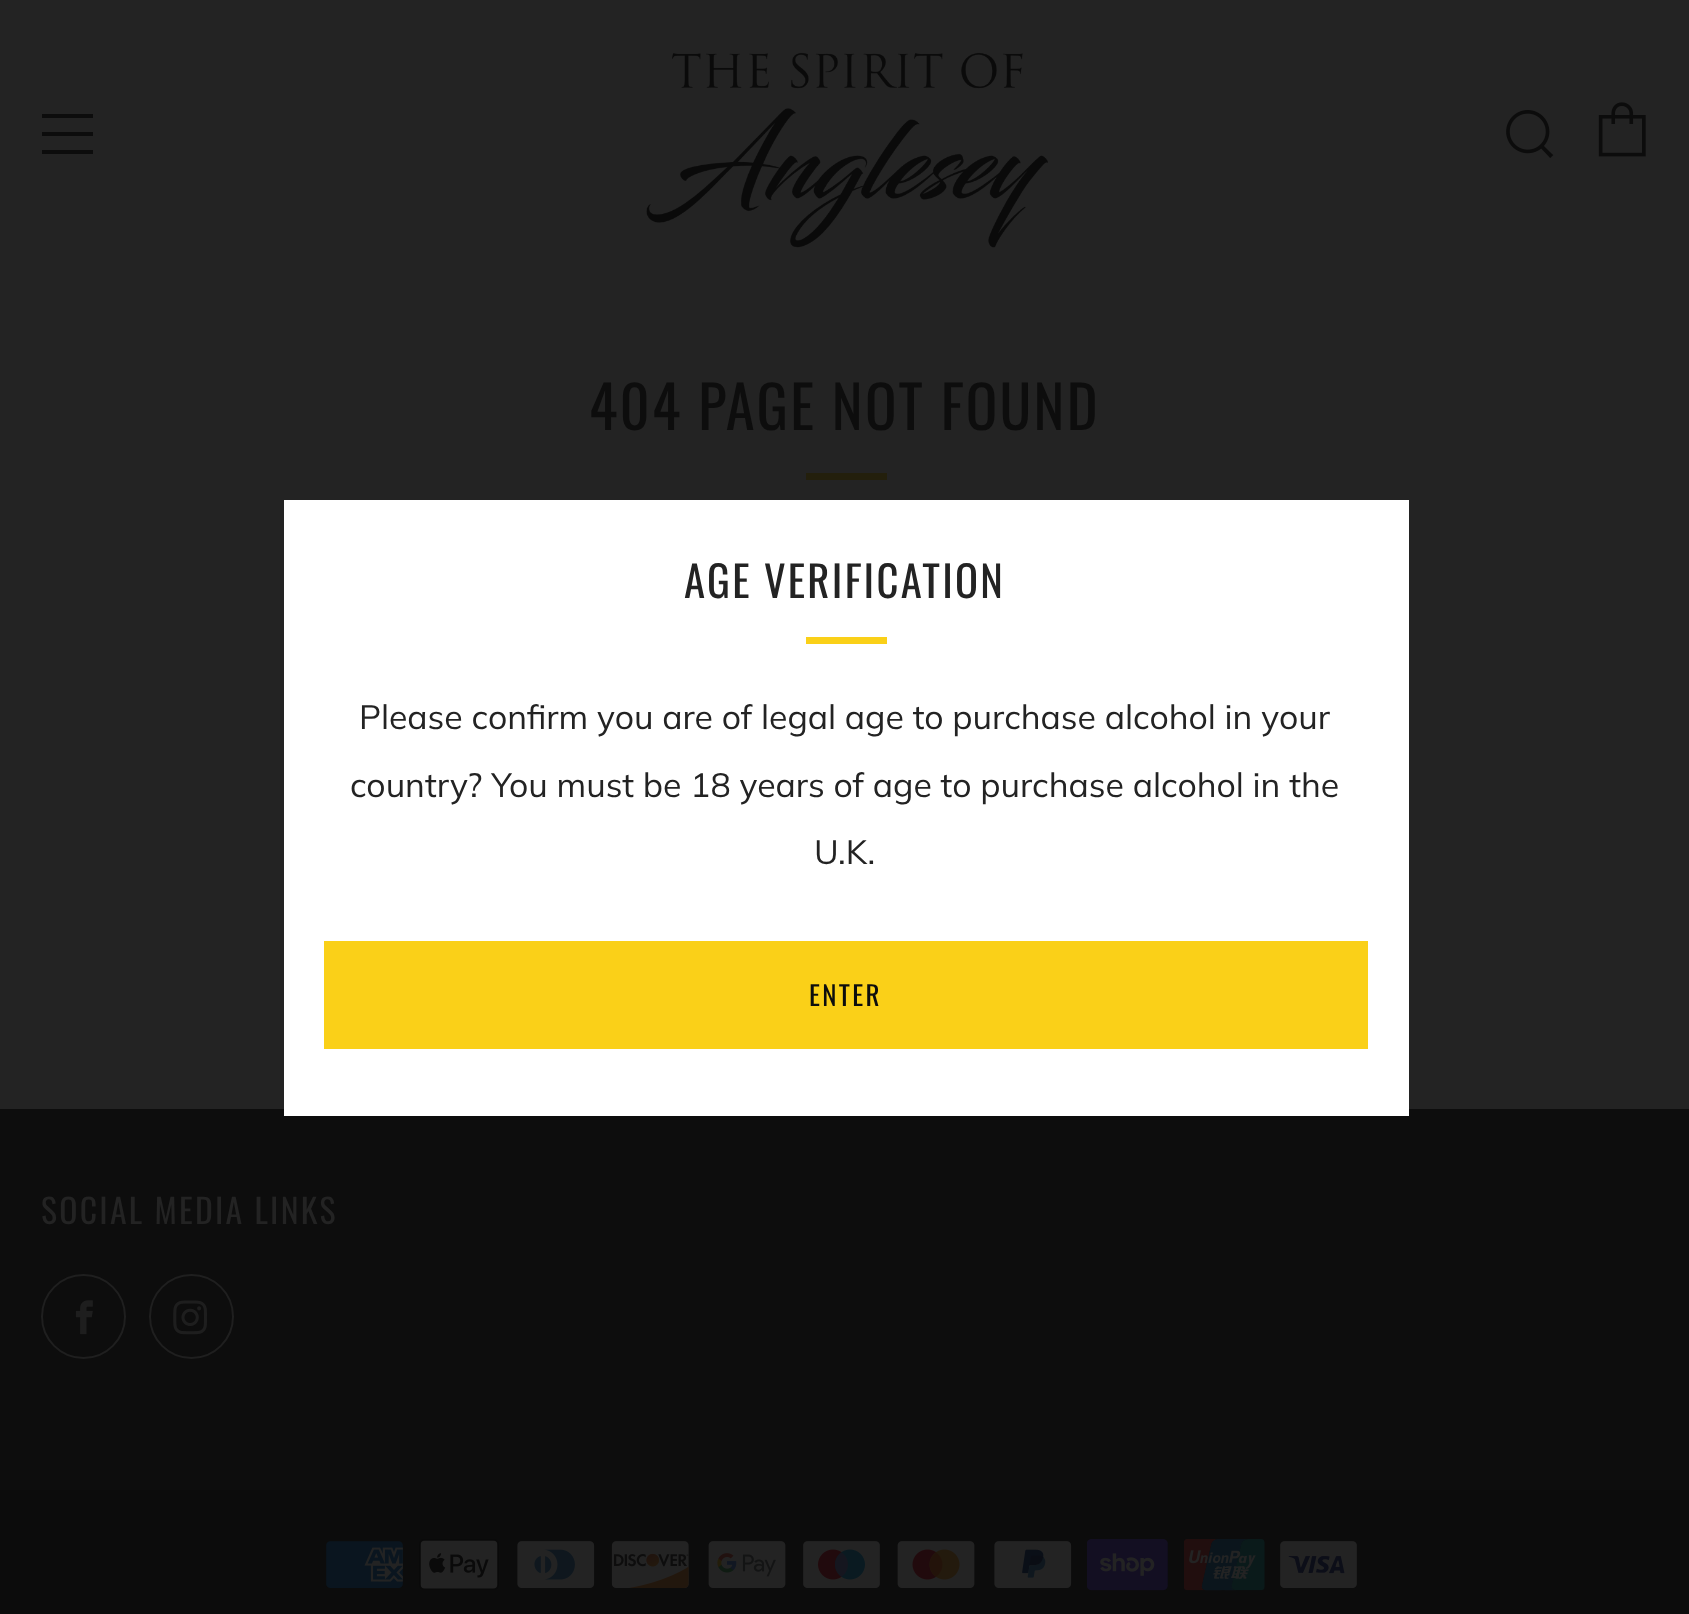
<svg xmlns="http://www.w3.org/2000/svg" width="1689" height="1614">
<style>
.a{font:58.5px Oswald;letter-spacing:2.25px;fill:#0d0d0d}
.b{font:33.75px Oswald;letter-spacing:2.25px;fill:#232323}
.c{font:42.75px Oswald;letter-spacing:2.25px;fill:#232323}
.d{font:33.75px Muli;fill:#232323}
.e{font:27px Oswald;letter-spacing:2.25px;fill:#0d0d0d}
</style>
<rect width="100%" height="100%" fill="#232323"/>
<path fill="#0c0c0c" d="M42 118h51v-4h-51zm0 36h51v-4h-51zm0-18h51v-4h-51z"/>
<image href="1.png" x="645" y="52" width="403" height="197"/>
<image href="2.png" x="1506" y="110" width="48" height="48"/>
<image href="3.png" x="1598" y="102" width="48" height="55"/>
<path fill="#231f0c" d="M806 473h81v7H806z"/>
<path fill="#0d0d0d" d="M0 1109h1689v381H0z"/>
<circle fill="none" stroke="#1f1f1f" stroke-width="2" cx="83.5" cy="1316.5" r="41.5"/>
<image href="4.png" x="75" y="1300" width="18" height="35"/>
<circle fill="none" stroke="#1f1f1f" stroke-width="2" cx="191.5" cy="1316.5" r="41.5"/>
<image href="5.png" x="173" y="1300" width="34" height="35"/>
<path fill="#0c0c0c" d="M0 1490h1689v124H0z"/>
<image href="6.png" x="326" y="1541" width="77" height="47"/>
<image href="7.png" x="419" y="1539" width="80" height="51"/>
<image href="8.png" x="517" y="1541" width="78" height="47"/>
<image href="9.png" x="611" y="1541" width="78" height="47"/>
<image href="10.png" x="708" y="1541" width="78" height="47"/>
<image href="11.png" x="803" y="1541" width="77" height="47"/>
<image href="12.png" x="897" y="1541" width="78" height="47"/>
<image href="13.png" x="994" y="1541" width="78" height="47"/>
<image href="14.png" x="1087" y="1539" width="81" height="52"/>
<image href="15.png" x="1184" y="1539" width="81" height="52"/>
<image href="16.png" x="1280" y="1541" width="77" height="47"/>
<path fill="#fff" d="M284 500h1125v616H284z"/>
<path fill="#fad018" d="M806 637h81v7H806z"/>
<path fill="#fad018" d="M324 941h1044v108H324z"/>
<text class="a" x="589" y="430">404 PAGE NOT FOUND</text>
<text class="b" x="41" y="1224">SOCIAL MEDIA LINKS</text>
<text class="c" x="684" y="598">AGE VERIFICATION</text>
<text class="d" x="359" y="729">Please confirm you are of legal age to purchase alcohol in your</text>
<text class="d" x="350" y="797">country? You must be 18 years of age to purchase alcohol in the</text>
<text class="d" x="814" y="864">U.K.</text>
<text class="e" x="809" y="1006">ENTER</text>
</svg>
